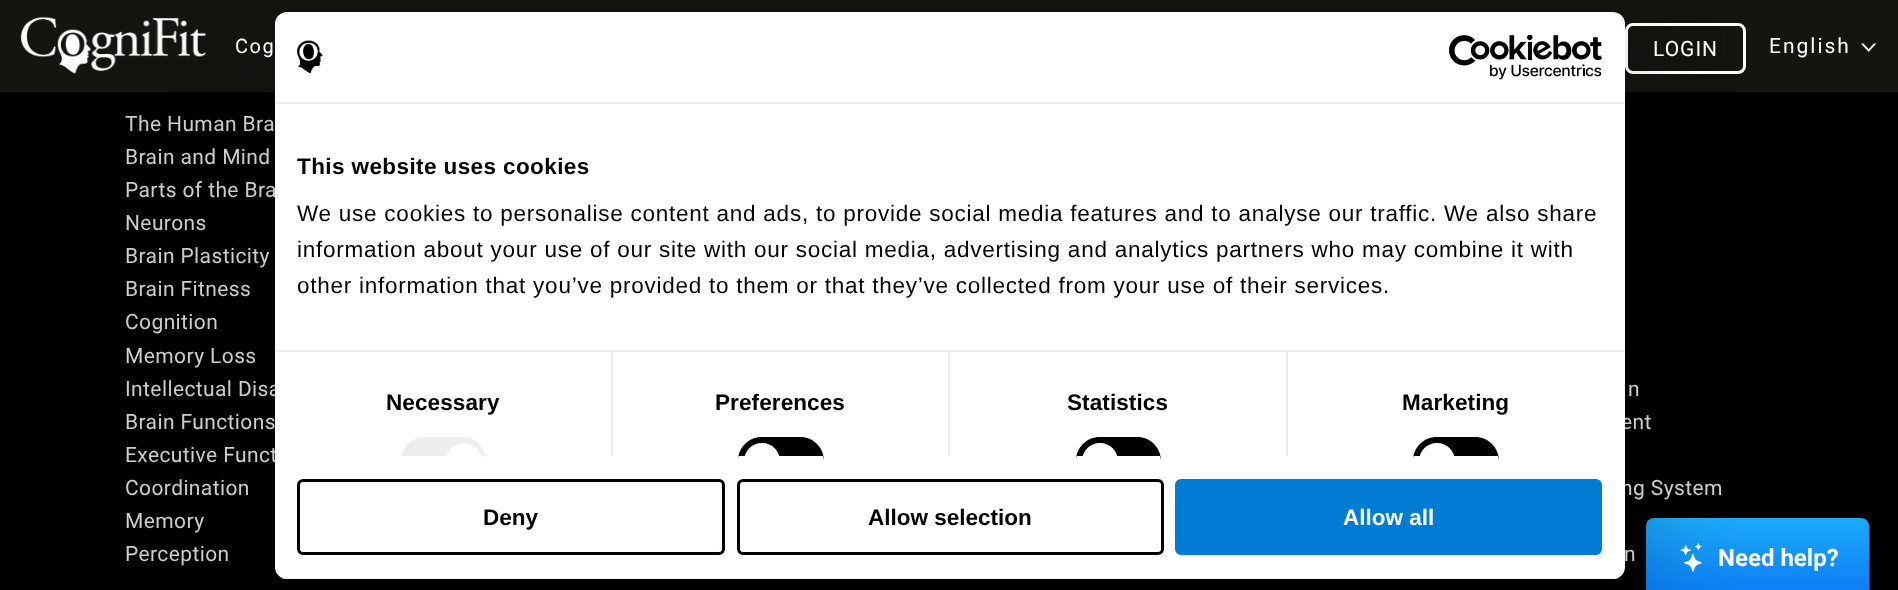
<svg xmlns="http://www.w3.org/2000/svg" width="1898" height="590">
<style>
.a{font:20px Roboto;letter-spacing:1.5px;fill:#fff}
.b{font:21px Roboto;letter-spacing:1px;fill:#fff}
.c{font:21px Roboto;letter-spacing:2px;fill:#fff}
.d{font:21px Roboto;letter-spacing:0.4px;fill:#ccc}
.e{font:bold 22.5px Liberation Sans;letter-spacing:0.4px;fill:#000}
.f{font:22.5px Liberation Sans;letter-spacing:0.75px;fill:#000}
.g{font:bold 22.5px Liberation Sans;letter-spacing:0.1px;fill:#000}
.h{font:bold 22.5px Liberation Sans;fill:#000}
.i{font:bold 22.5px Liberation Sans;fill:#fff}
.j{font:bold 24px Roboto;fill:#fff}
</style>
<defs>
<linearGradient id="g1" gradientUnits="userSpaceOnUse" x1="1757" y1="518" x2="1757" y2="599"><stop offset="0" stop-color="#1caafa"/><stop offset="1" stop-color="#0b7af4"/></linearGradient>
<clipPath id="clip1"><rect x="275" y="12" width="1350" height="567" rx="12"/></clipPath>
</defs>
<rect width="100%" height="100%" fill="#000"/>
<path fill="#161411" d="M0 0h1898v92H0z"/>
<image href="1.png" x="20" y="17" width="186" height="57"/>
<rect fill="none" stroke="#fff" stroke-width="3" x="1626.5" y="24.5" width="118" height="48" rx="6.5"/>
<image href="2.png" x="1860" y="43" width="17" height="10"/>
<rect fill="url(#g1)" x="1646" y="518" width="223" height="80" rx="8"/>
<image href="5.png" x="1680" y="543" width="22" height="29"/>
<rect fill="#0000004d" filter="blur(51px)" x="275" y="60" width="1350" height="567" rx="12"/>
<text class="a" x="235" y="53">Cog</text>
<text class="b" x="1653" y="56">LOGIN</text>
<text class="c" x="1769" y="53">English</text>
<text class="d" x="125" y="131">The Human Bra</text>
<text class="d" x="125" y="164">Brain and Mind</text>
<text class="d" x="125" y="197">Parts of the Bra</text>
<text class="d" x="125" y="230">Neurons</text>
<text class="d" x="125" y="263">Brain Plasticity</text>
<text class="d" x="125" y="296">Brain Fitness</text>
<text class="d" x="125" y="329">Cognition</text>
<text class="d" x="125" y="363">Memory Loss</text>
<text class="d" x="125" y="396">Intellectual Disa</text>
<text class="d" x="125" y="429">Brain Functions</text>
<text class="d" x="125" y="462">Executive Funct</text>
<text class="d" x="125" y="495">Coordination</text>
<text class="d" x="125" y="528">Memory</text>
<text class="d" x="125" y="561">Perception</text>
<text class="d" x="1628" y="396">n</text>
<text class="d" x="1621" y="429">ent</text>
<text class="d" x="1621" y="495">ng System</text>
<text class="d" x="1624" y="561">n</text>
<rect fill="#fff" x="275" y="12" width="1350" height="567" rx="12"/>
<path fill="#eee" d="M275 102h1350v2H275z"/>
<image href="3.png" x="297" y="40" width="26" height="34"/>
<image href="4.png" x="1449" y="35" width="153" height="45"/>
<text class="e" x="297" y="174">This website uses cookies</text>
<text class="f" x="297" y="221">We use cookies to personalise content and ads, to provide social media features and to analyse our traffic. We also share</text>
<text class="f" x="297" y="257">information about your use of our site with our social media, advertising and analytics partners who may combine it with</text>
<text class="f" x="297" y="293">other information that you’ve provided to them or that they’ve collected from your use of their services.</text>
<path fill="#eee" d="M611 351h2v105H611z"/>
<text class="g" x="386" y="410">Necessary</text>
<path fill="#eee" d="M425 437h37c13.5 0 24 10.5 24 24v-5h-85v5c0-13.5 10.5-24 24-24z"/>
<path fill="#fff" d="M464 443c10 0 18 8 18 18v-5h-36v5c0-10 8-18 18-18z"/>
<path fill="#eee" d="M948 351h2v105H948z"/>
<text class="g" x="715" y="410">Preferences</text>
<path fill="#000" d="M762 437h38c13.5 0 24 10.5 24 24v-5h-86v5c0-13.5 10.5-24 24-24z"/>
<path fill="#fff" d="M762 443c10 0 18 8 18 18v-5h-36v5c0-10 8-18 18-18z"/>
<path fill="#eee" d="M1286 351h2v105H1286z"/>
<path fill="#eee" d="M275 350h1350v2H275z"/>
<text class="g" x="1067" y="410">Statistics</text>
<path fill="#000" d="M1100 437h37c13.5 0 24 10.5 24 24v-5h-85v5c0-13.5 10.5-24 24-24z"/>
<path fill="#fff" d="M1100 443c10 0 18 8 18 18v-5h-36v5c0-10 8-18 18-18z"/>
<text class="g" x="1402" y="410">Marketing</text>
<path fill="#000" d="M1437 437h38c13.5 0 24 10.5 24 24v-5h-86v5c0-13.5 10.5-24 24-24z"/>
<path fill="#fff" d="M1437 443c10 0 18 8 18 18v-5h-36v5c0-10 8-18 18-18z"/>
<g clip-path="url(#clip1)">
<path fill="#eee" d="M275 578h1350v1H275z"/>
</g>
<rect fill="none" stroke="#000" stroke-width="3" x="298.5" y="480.5" width="425" height="73" rx="4.5"/>
<text class="h" x="483" y="525">Deny</text>
<rect fill="none" stroke="#000" stroke-width="3" x="738.5" y="480.5" width="424" height="73" rx="4.5"/>
<text class="h" x="868" y="525">Allow selection</text>
<rect fill="#007cd5" stroke="#007cd5" stroke-width="3" x="1176.5" y="480.5" width="424" height="73" rx="4.5"/>
<text class="i" x="1343" y="525">Allow all</text>
<text class="j" x="1718" y="566">Need help?</text>
</svg>
